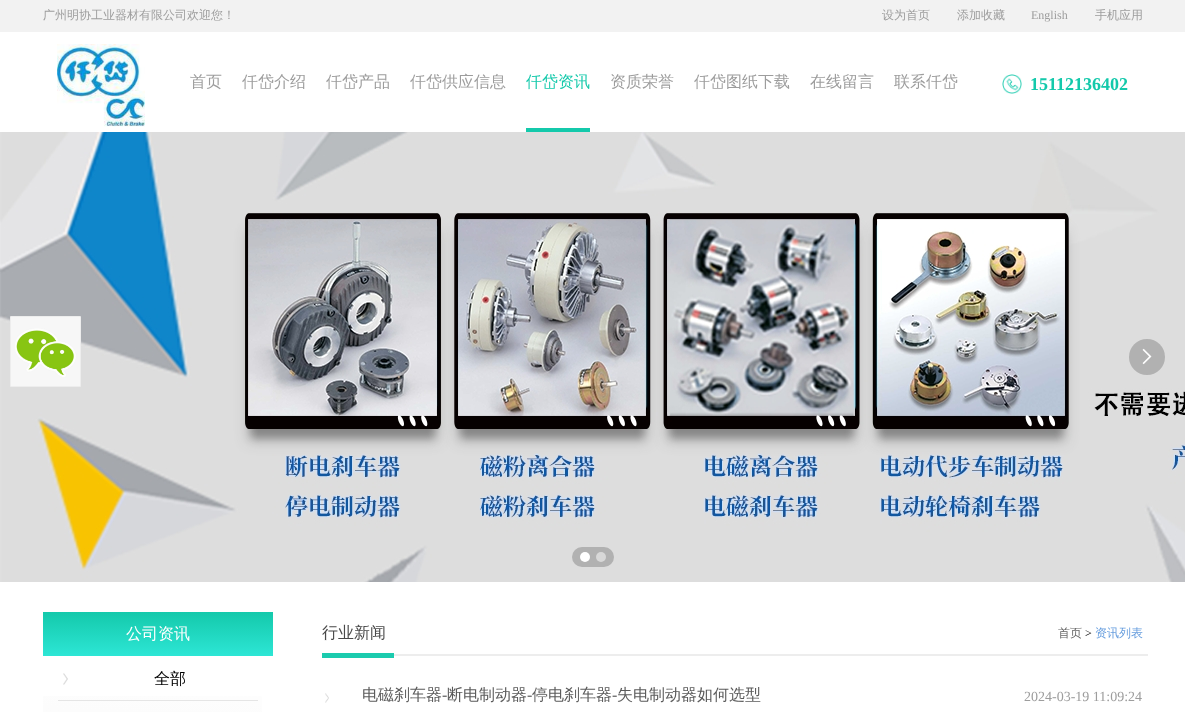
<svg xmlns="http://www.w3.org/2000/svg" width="1185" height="712">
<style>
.a{font:500 12px WenQuanYi Zen Hei;fill:#9d9d9d}
.b{font:12px Liberation Serif;fill:#9d9d9d}
.c{font:500 16px WenQuanYi Zen Hei;fill:#9d9d9d}
.d{font:500 16px WenQuanYi Zen Hei;fill:#14c9ab}
.e{font:bold 18px Liberation Serif;fill:#14c9ab}
.f{font:500 16px WenQuanYi Zen Hei;fill:#fff}
.g{font:500 16px WenQuanYi Zen Hei;fill:#000}
.h{font:500 16px WenQuanYi Zen Hei;fill:#494949}
.i{font:500 12px WenQuanYi Zen Hei;fill:#666}
.j{font:12px Liberation Serif;fill:#000}
.k{font:500 12px WenQuanYi Zen Hei;fill:#689ede}
.l{font:500 16px WenQuanYi Zen Hei;fill:#5b5b5b}
.m{font:16px Liberation Serif;fill:#5b5b5b}
.n{font:14px Liberation Serif;fill:#9d9d9d}
</style>
<defs>
<linearGradient id="g1" gradientUnits="userSpaceOnUse" x1="158" y1="656" x2="158" y2="612"><stop offset="0" stop-color="#2de6d5"/><stop offset="1" stop-color="#14c9ab"/></linearGradient>
<linearGradient id="g2" gradientUnits="userSpaceOnUse" x1="168" y1="649" x2="148" y2="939"><stop offset="0" stop-color="#fff"/><stop offset="1" stop-color="#f2f2f2"/></linearGradient>
</defs>
<rect width="100%" height="100%" fill="#fff"/>
<path fill="#f2f2f2" d="M0 0h1185v32H0z"/>
<image href="1.png" x="57" y="44" width="88" height="83"/>
<path fill="#14c9ab" d="M526 128h64v4H526z"/>
<image href="2.png" x="1002" y="74" width="20" height="20"/>
<image href="3.png" x="0" y="132" width="1185" height="450"/>
<circle fill="#b1b1b1" cx="1147" cy="357" r="18"/>
<image href="4.png" x="1142" y="348" width="10" height="17"/>
<rect fill="#b1b1b1" x="572" y="547" width="42" height="20" rx="10"/>
<circle fill="#fff" cx="585" cy="557" r="5"/>
<circle fill="#d8d8d8" cx="601" cy="557" r="5"/>
<path fill="none" stroke="#ededed" d="M10.5 316.5h70v70H10.5z"/>
<image href="5.png" x="11" y="317" width="69" height="69"/>
<path fill="url(#g1)" d="M43 612h230v44H43z"/>
<path fill="url(#g2)" d="M43 696h219v16H43z"/>
<image href="6.png" x="63" y="673" width="5" height="12"/>
<path fill="#e5e5e5" d="M58 700h200v1H58z"/>
<path fill="#1bcbae" d="M322 653h72v5H322z"/>
<path fill="#ededed" d="M394 654h754v2H394z"/>
<image href="7.png" x="325" y="693" width="4" height="10"/>
<text class="a" x="43" y="19">广州明协工业器材有限公司欢迎您！</text>
<text class="a" x="882" y="19">设为首页</text>
<text class="a" x="957" y="19">添加收藏</text>
<text class="b" x="1031" y="19">English</text>
<text class="a" x="1095" y="19">手机应用</text>
<text class="c" x="190" y="87">首页</text>
<text class="c" x="242" y="87">仟岱介绍</text>
<text class="c" x="326" y="87">仟岱产品</text>
<text class="c" x="410" y="87">仟岱供应信息</text>
<text class="d" x="526" y="87">仟岱资讯</text>
<text class="c" x="610" y="87">资质荣誉</text>
<text class="c" x="694" y="87">仟岱图纸下载</text>
<text class="c" x="810" y="87">在线留言</text>
<text class="c" x="894" y="87">联系仟岱</text>
<text class="e" x="1030" y="90">15112136402</text>
<text class="f" x="126" y="639">公司资讯</text>
<text class="g" x="154" y="684">全部</text>
<text class="h" x="322" y="638">行业新闻</text>
<text class="i" x="1058" y="637">首页</text>
<text class="j" x="1085" y="637">&gt;</text>
<text class="k" x="1095" y="637">资讯列表</text>
<text class="l" x="362" y="700">电磁刹车器</text>
<text class="m" x="442" y="700">-</text>
<text class="l" x="447" y="700">断电制动器</text>
<text class="m" x="527" y="700">-</text>
<text class="l" x="532" y="700">停电刹车器</text>
<text class="m" x="612" y="700">-</text>
<text class="l" x="617" y="700">失电制动器如何选型</text>
<text class="n" x="1024" y="701">2024-03-19 11:09:24</text>
</svg>
